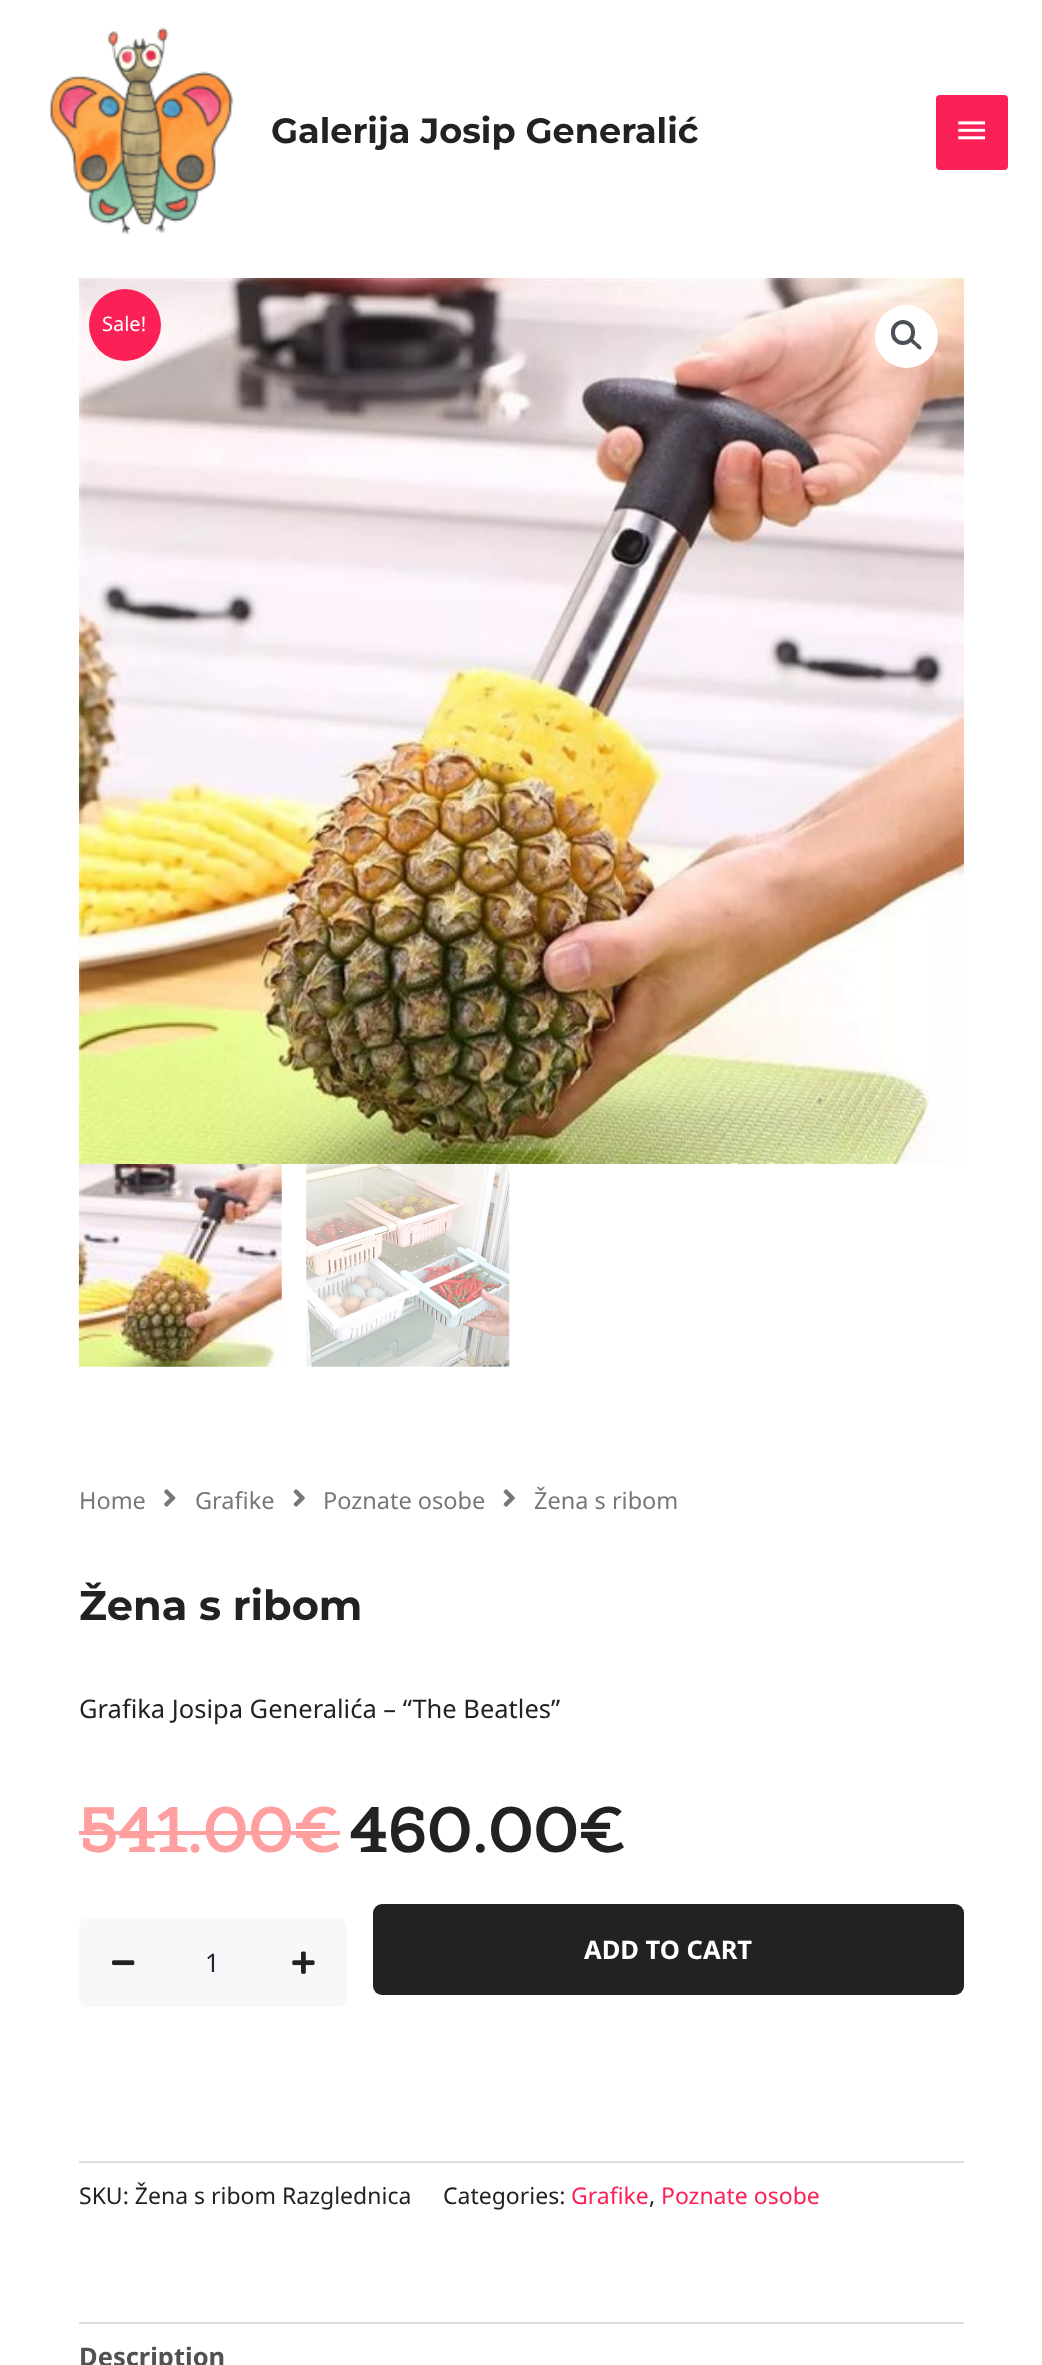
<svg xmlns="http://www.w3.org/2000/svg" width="1042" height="2365">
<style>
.a{font:100 35.1px Montserrat;fill:#222}
.b{font:20px Noto Sans;fill:#fff}
.c{font:23.5px Noto Sans;fill:#777}
.d{font:100 41.5px Montserrat;fill:#222}
.e{font:25.5px Noto Sans;fill:#222}
.f{font:bold 61.25px Belgrano;fill:#ff9f9f}
.g{font:bold 61.25px Belgrano;fill:#222}
.h{font:bold 25.5px Noto Sans;fill:#fff}
.i{font:25.5px Noto Sans;fill:#212529}
.j{font:23px Noto Sans;fill:#222}
.k{font:23px Noto Sans;fill:#fb2056}
.l{font:bold 25.5px Noto Sans;fill:#515151}
</style>
<rect width="100%" height="100%" fill="#fff"/>
<image href="1.png" x="49" y="27" width="185" height="208"/>
<rect fill="#fb2056" x="936" y="95" width="72" height="75" rx="4"/>
<image href="2.png" x="958" y="121" width="28" height="19"/>
<image href="3.png" x="79" y="278" width="885" height="886"/>
<circle fill="#fff" cx="906.5" cy="336.5" r="31.5"/>
<rect fill="none" stroke="#4b4f58" stroke-width="4" x="893" y="322" width="20" height="21" rx="10"/>
<path fill="#4b4f58" d="M911 339.5c2-2 5 2.5 6 3.5c1.5 1 6 4 4 6c-2 2-5-2.5-6-3.5c-1.5-1-6-4-4-6z"/>
<image href="4.png" x="78" y="1164" width="204" height="203"/>
<image href="5.png" x="306" y="1163" width="204" height="204"/>
<circle fill="#fb2056" cx="125" cy="325" r="36"/>
<image href="6.png" x="164" y="1489" width="12" height="18"/>
<image href="7.png" x="293" y="1489" width="12" height="18"/>
<image href="7.png" x="503" y="1489" width="12" height="18"/>
<path fill="#ff9f9f" d="M79 1831h261v4H79z"/>
<rect fill="#222" x="373" y="1904" width="591" height="91" rx="9"/>
<rect fill="#f7f8fa" x="79" y="1918" width="268" height="89" rx="9"/>
<image href="8.png" x="112" y="1960" width="23" height="6"/>
<image href="9.png" x="292" y="1951" width="23" height="23"/>
<path fill="#ddd" d="M79 2161h885v2H79z"/>
<path fill="#ddd" d="M79 2322h885v2H79z"/>
<text class="a" x="271" y="143">Galerija Josip Generalić</text>
<text class="b" x="102" y="331">Sale!</text>
<text class="c" x="79" y="1509">Home</text>
<text class="c" x="195" y="1509">Grafike</text>
<text class="c" x="323" y="1509">Poznate osobe</text>
<text class="c" x="534" y="1509">Žena s ribom</text>
<text class="d" x="79" y="1620">Žena s ribom</text>
<text class="e" x="79" y="1718">Grafika Josipa Generalića – “The Beatles”</text>
<text class="f" x="79" y="1852">541.00€</text>
<text class="g" x="349" y="1852">460.00€</text>
<text class="h" x="584" y="1959">ADD TO CART</text>
<text class="i" x="205" y="1972">1</text>
<text class="j" x="79" y="2204">SKU: Žena s ribom Razglednica</text>
<text class="j" x="443" y="2204">Categories:</text>
<text class="k" x="571" y="2204">Grafike</text>
<text class="j" x="649" y="2204">,</text>
<text class="k" x="661" y="2204">Poznate osobe</text>
<text class="l" x="79" y="2366">Description</text>
</svg>
